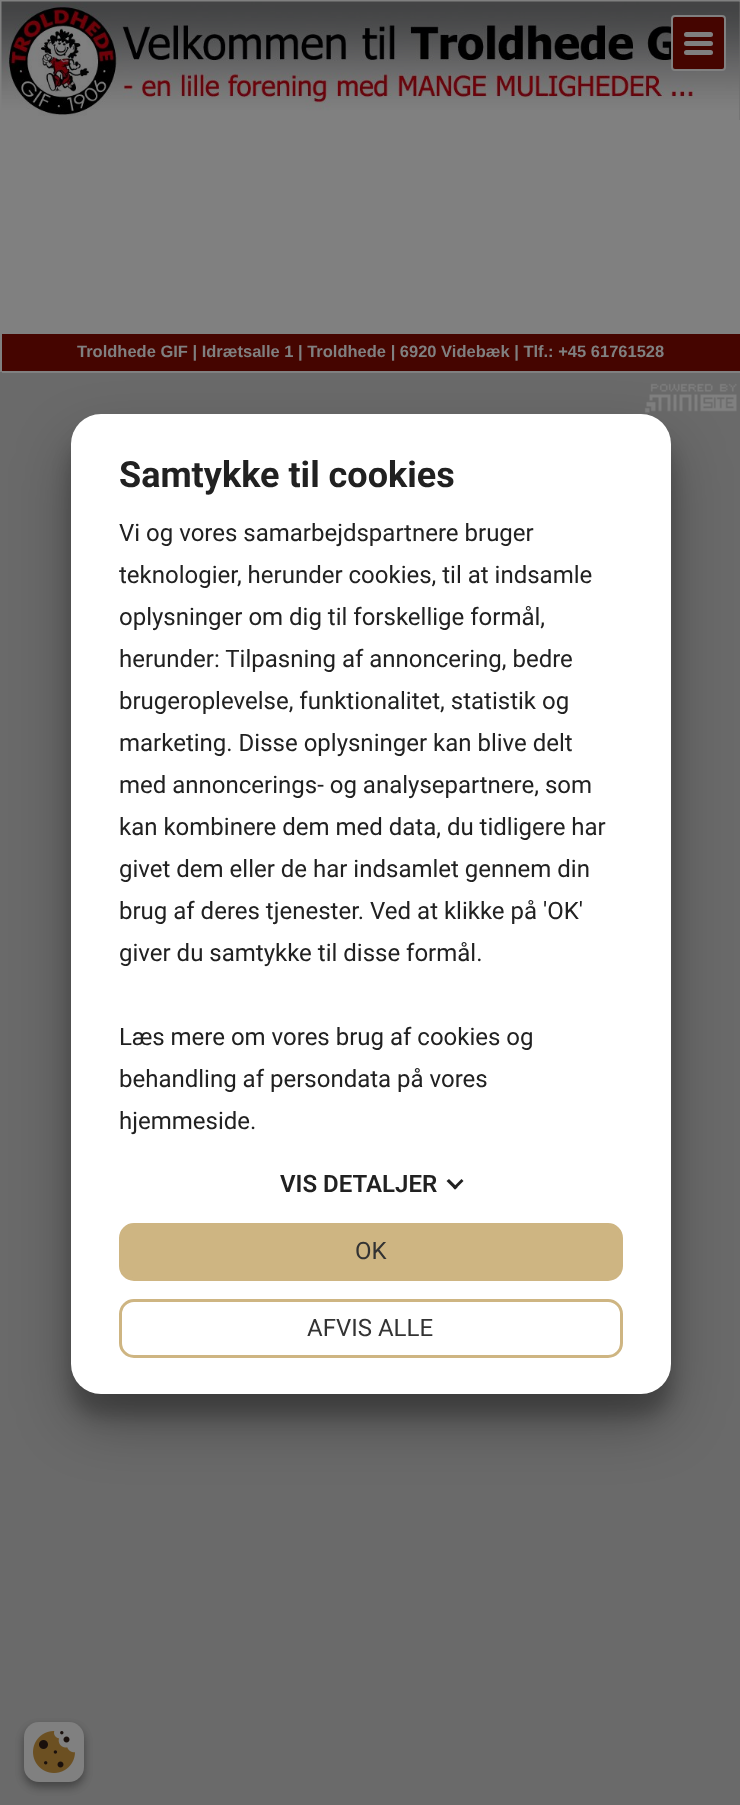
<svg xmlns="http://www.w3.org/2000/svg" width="740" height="1805">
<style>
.a{font:bold 16.5px Liberation Sans;fill:#808080}
.b{font:bold 36px Roboto;fill:#212121}
.c{font:24px Roboto;fill:#212121}
.d{font:600 24px Roboto;fill:#212121}
.e{font:24px Roboto;fill:#333}
</style>
<rect width="100%" height="100%" fill="#6a6a6a"/>
<path fill="#808080" d="M0 0h740v372H0z"/>
<path fill="#808080" d="M2 372h738v1H2z"/>
<path fill="#6a6a6a" d="M739 2h1v118H739z"/>
<image href="1.png" x="1" y="1" width="739" height="121"/>
<rect fill="#450500" stroke="#808080" stroke-width="2" x="672" y="16" width="53" height="54" rx="3"/>
<rect fill="#808080" x="684" y="32" width="29" height="5" rx="2.5"/>
<rect fill="#808080" x="684" y="41" width="29" height="5" rx="2.5"/>
<rect fill="#808080" x="684" y="50" width="29" height="5" rx="2.5"/>
<path fill="#450500" d="M2 334h738v37H2z"/>
<image href="2.png" x="644" y="383" width="93" height="30"/>
<rect fill="#00000038" filter="blur(9px)" x="71" y="437" width="600" height="979" rx="30"/>
<rect fill="#0000004d" filter="blur(28.5px)" x="71" y="443" width="600" height="979" rx="30"/>
<rect fill="#fff" x="71" y="414" width="600" height="980" rx="30"/>
<path fill="#212121" d="M461.5 1179l2 2l-8.5 8.5l-2-2z"/>
<path fill="#212121" d="M449 1179l8.5 8.5l-2.5 2l-8.5-8.5z"/>
<rect fill="#ceb582" stroke="#ceb582" stroke-width="3" x="120.5" y="1224.5" width="501" height="55" rx="13.5"/>
<rect fill="none" stroke="#ceb582" stroke-width="3" x="120.5" y="1300.5" width="501" height="56" rx="13.5"/>
<rect fill="#0000003b" filter="blur(4.5px)" x="24" y="1727" width="60" height="60" rx="15"/>
<rect fill="#00000029" filter="blur(4.5px)" x="24" y="1727" width="60" height="60" rx="15"/>
<rect fill="#808080" x="24" y="1722" width="60" height="60" rx="15"/>
<image href="3.png" x="33" y="1731" width="42" height="42"/>
<text class="a" x="77" y="357">Troldhede GIF | Idrætsalle 1 | Troldhede | 6920 Videbæk | Tlf.: +45 61761528</text>
<text class="b" x="119" y="487">Samtykke til cookies</text>
<text class="c" x="119" y="541">Vi og vores samarbejdspartnere bruger</text>
<text class="c" x="119" y="583">teknologier, herunder cookies, til at indsamle</text>
<text class="c" x="119" y="625">oplysninger om dig til forskellige formål,</text>
<text class="c" x="119" y="667">herunder: Tilpasning af annoncering, bedre</text>
<text class="c" x="119" y="709">brugeroplevelse, funktionalitet, statistik og</text>
<text class="c" x="119" y="751">marketing. Disse oplysninger kan blive delt</text>
<text class="c" x="119" y="793">med annoncerings- og analysepartnere, som</text>
<text class="c" x="119" y="835">kan kombinere dem med data, du tidligere har</text>
<text class="c" x="119" y="877">givet dem eller de har indsamlet gennem din</text>
<text class="c" x="119" y="919">brug af deres tjenester. Ved at klikke på 'OK'</text>
<text class="c" x="119" y="961">giver du samtykke til disse formål.</text>
<text class="c" x="119" y="1045">Læs mere om vores brug af cookies og</text>
<text class="c" x="119" y="1087">behandling af persondata på vores</text>
<text class="c" x="119" y="1129">hjemmeside.</text>
<text class="d" x="280" y="1192">VIS DETALJER</text>
<text class="e" x="355" y="1259">OK</text>
<text class="e" x="307" y="1336">AFVIS ALLE</text>
</svg>
